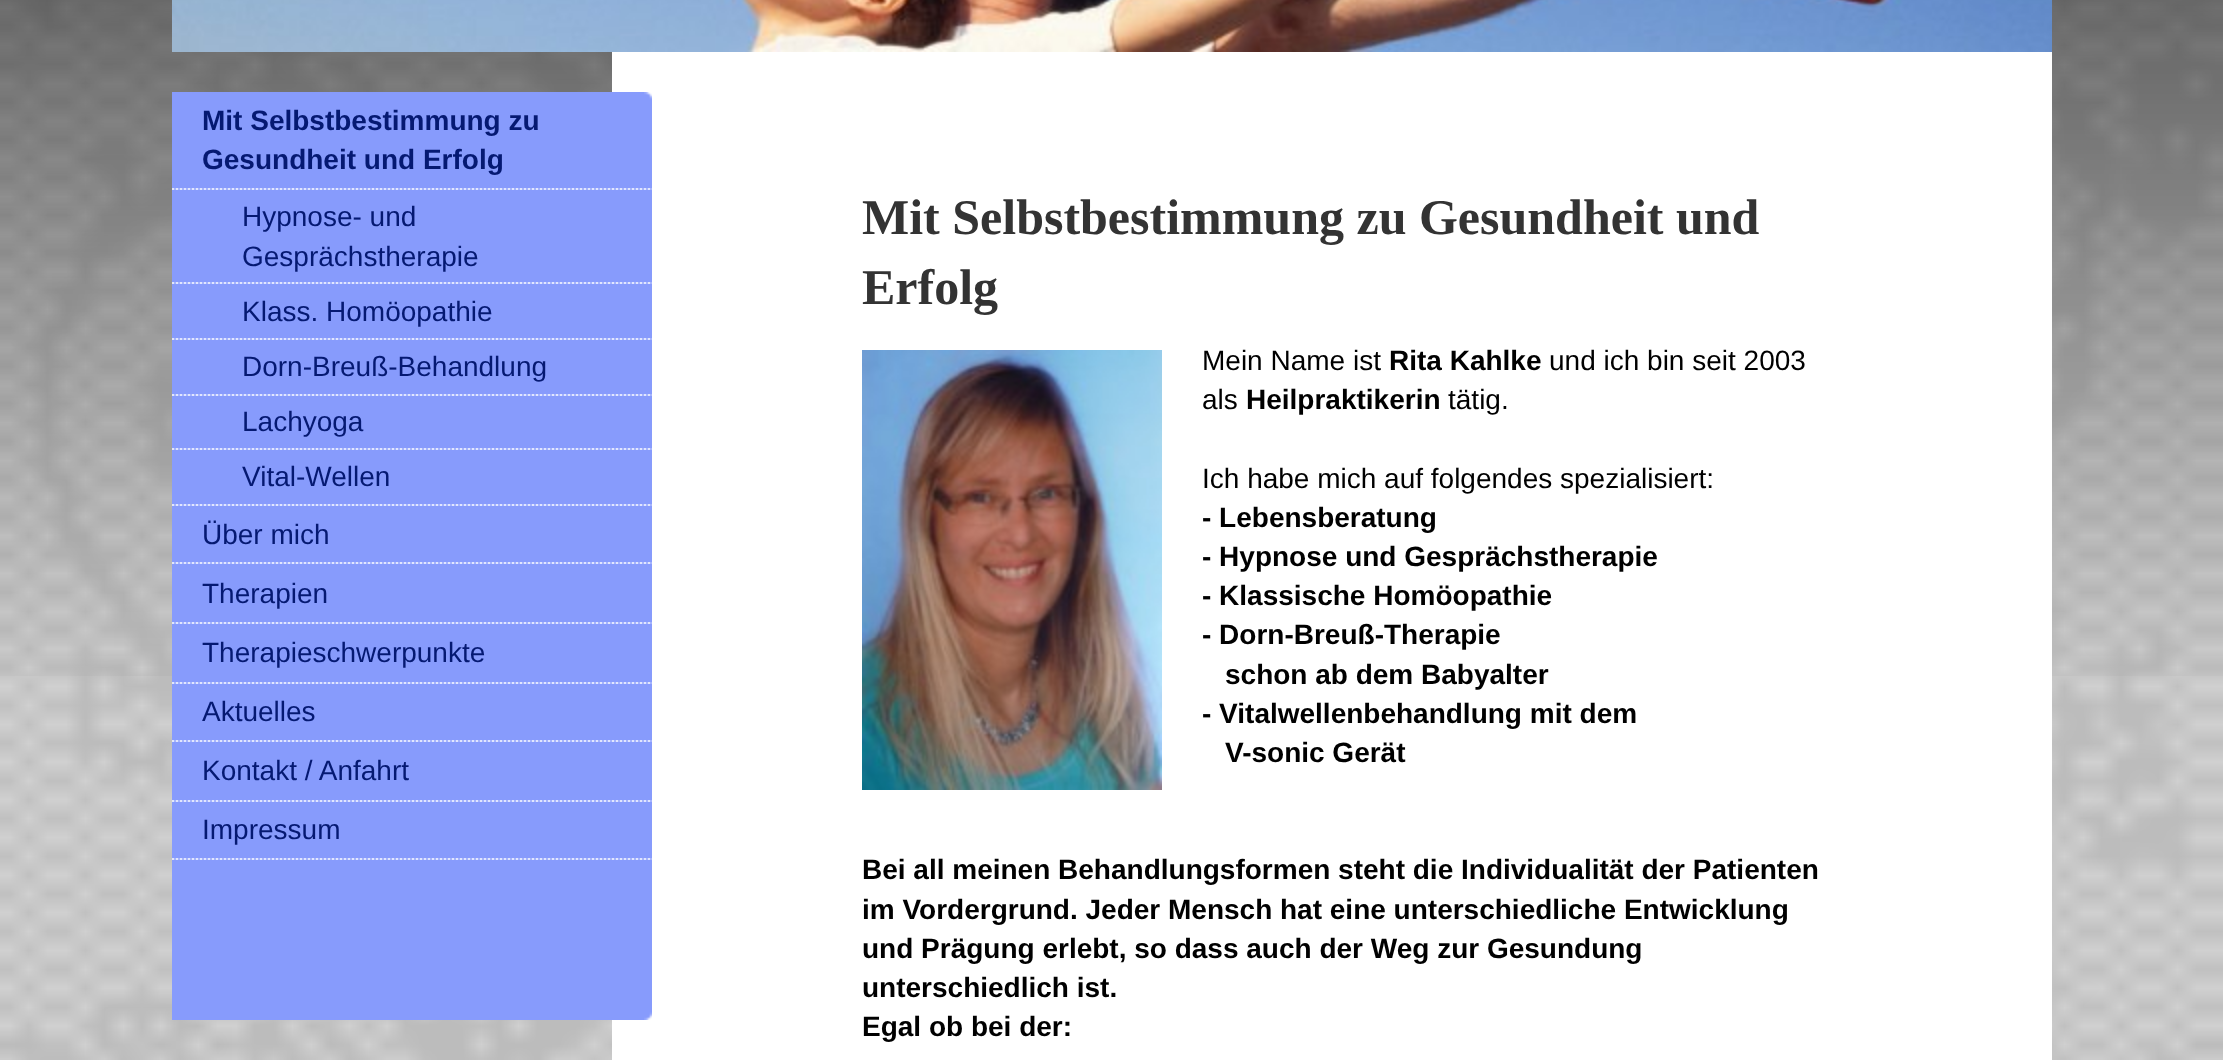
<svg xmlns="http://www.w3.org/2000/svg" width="2223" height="1060">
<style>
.a{font:bold 28px Liberation Sans;fill:#051972}
.b{font:28px Liberation Sans;fill:#051972}
.c{font:bold 50px Liberation Serif;fill:#333}
.d{font:28px Liberation Sans;fill:#000}
.e{font:bold 28px Liberation Sans;fill:#000}
</style>
<rect width="100%" height="100%" fill="#fff"/>
<image href="1.png" x="0" y="0" width="2223" height="1060"/>
<image href="2.png" x="0" y="0" width="2223" height="676"/>
<path fill="#fff" d="M612 52h1440v1008H612z"/>
<image href="3.png" x="172" y="0" width="1880" height="52"/>
<path fill="#879bfc" d="M172 92h480v928H172z"/>
<image href="4.png" x="644" y="1012" width="8" height="8"/>
<image href="5.png" x="644" y="92" width="8" height="8"/>
<image href="6.png" x="172" y="188" width="480" height="2"/>
<image href="6.png" x="172" y="282" width="480" height="2"/>
<image href="6.png" x="172" y="338" width="480" height="2"/>
<image href="6.png" x="172" y="394" width="480" height="2"/>
<image href="6.png" x="172" y="448" width="480" height="2"/>
<image href="6.png" x="172" y="504" width="480" height="2"/>
<image href="6.png" x="172" y="562" width="480" height="2"/>
<image href="6.png" x="172" y="622" width="480" height="2"/>
<image href="6.png" x="172" y="682" width="480" height="2"/>
<image href="6.png" x="172" y="740" width="480" height="2"/>
<image href="6.png" x="172" y="800" width="480" height="2"/>
<image href="6.png" x="172" y="858" width="480" height="2"/>
<image href="7.png" x="862" y="350" width="300" height="440"/>
<text class="a" x="202" y="130">Mit Selbstbestimmung zu</text>
<text class="a" x="202" y="169">Gesundheit und Erfolg</text>
<text class="b" x="242" y="226">Hypnose- und</text>
<text class="b" x="242" y="266">Gesprächstherapie</text>
<text class="b" x="242" y="321">Klass. Homöopathie</text>
<text class="b" x="242" y="376">Dorn-Breuß-Behandlung</text>
<text class="b" x="242" y="431">Lachyoga</text>
<text class="b" x="242" y="486">Vital-Wellen</text>
<text class="b" x="202" y="544">Über mich</text>
<text class="b" x="202" y="603">Therapien</text>
<text class="b" x="202" y="662">Therapieschwerpunkte</text>
<text class="b" x="202" y="721">Aktuelles</text>
<text class="b" x="202" y="780">Kontakt / Anfahrt</text>
<text class="b" x="202" y="839">Impressum</text>
<text class="c" x="862" y="234">Mit Selbstbestimmung zu Gesundheit und</text>
<text class="c" x="862" y="304">Erfolg</text>
<text class="d" x="1202" y="370">Mein Name ist</text>
<text class="e" x="1389" y="370">Rita Kahlke</text>
<text class="d" x="1549" y="370">und ich bin seit 2003</text>
<text class="d" x="1202" y="409">als</text>
<text class="e" x="1246" y="409">Heilpraktikerin</text>
<text class="d" x="1448" y="409">tätig.</text>
<text class="d" x="1202" y="488">Ich habe mich auf folgendes spezialisiert:</text>
<text class="e" x="1202" y="527">- Lebensberatung</text>
<text class="e" x="1202" y="566">- Hypnose und Gesprächstherapie</text>
<text class="e" x="1202" y="605">- Klassische Homöopathie</text>
<text class="e" x="1202" y="644">- Dorn-Breuß-Therapie</text>
<text class="e" x="1225" y="684">schon ab dem Babyalter</text>
<text class="e" x="1202" y="723">- Vitalwellenbehandlung mit dem</text>
<text class="e" x="1225" y="762">V-sonic Gerät</text>
<text class="e" x="862" y="879">Bei all meinen Behandlungsformen steht die Individualität der Patienten</text>
<text class="e" x="862" y="919">im Vordergrund. Jeder Mensch hat eine unterschiedliche Entwicklung</text>
<text class="e" x="862" y="958">und Prägung erlebt, so dass auch der Weg zur Gesundung</text>
<text class="e" x="862" y="997">unterschiedlich ist.</text>
<text class="e" x="862" y="1036">Egal ob bei der:</text>
</svg>
